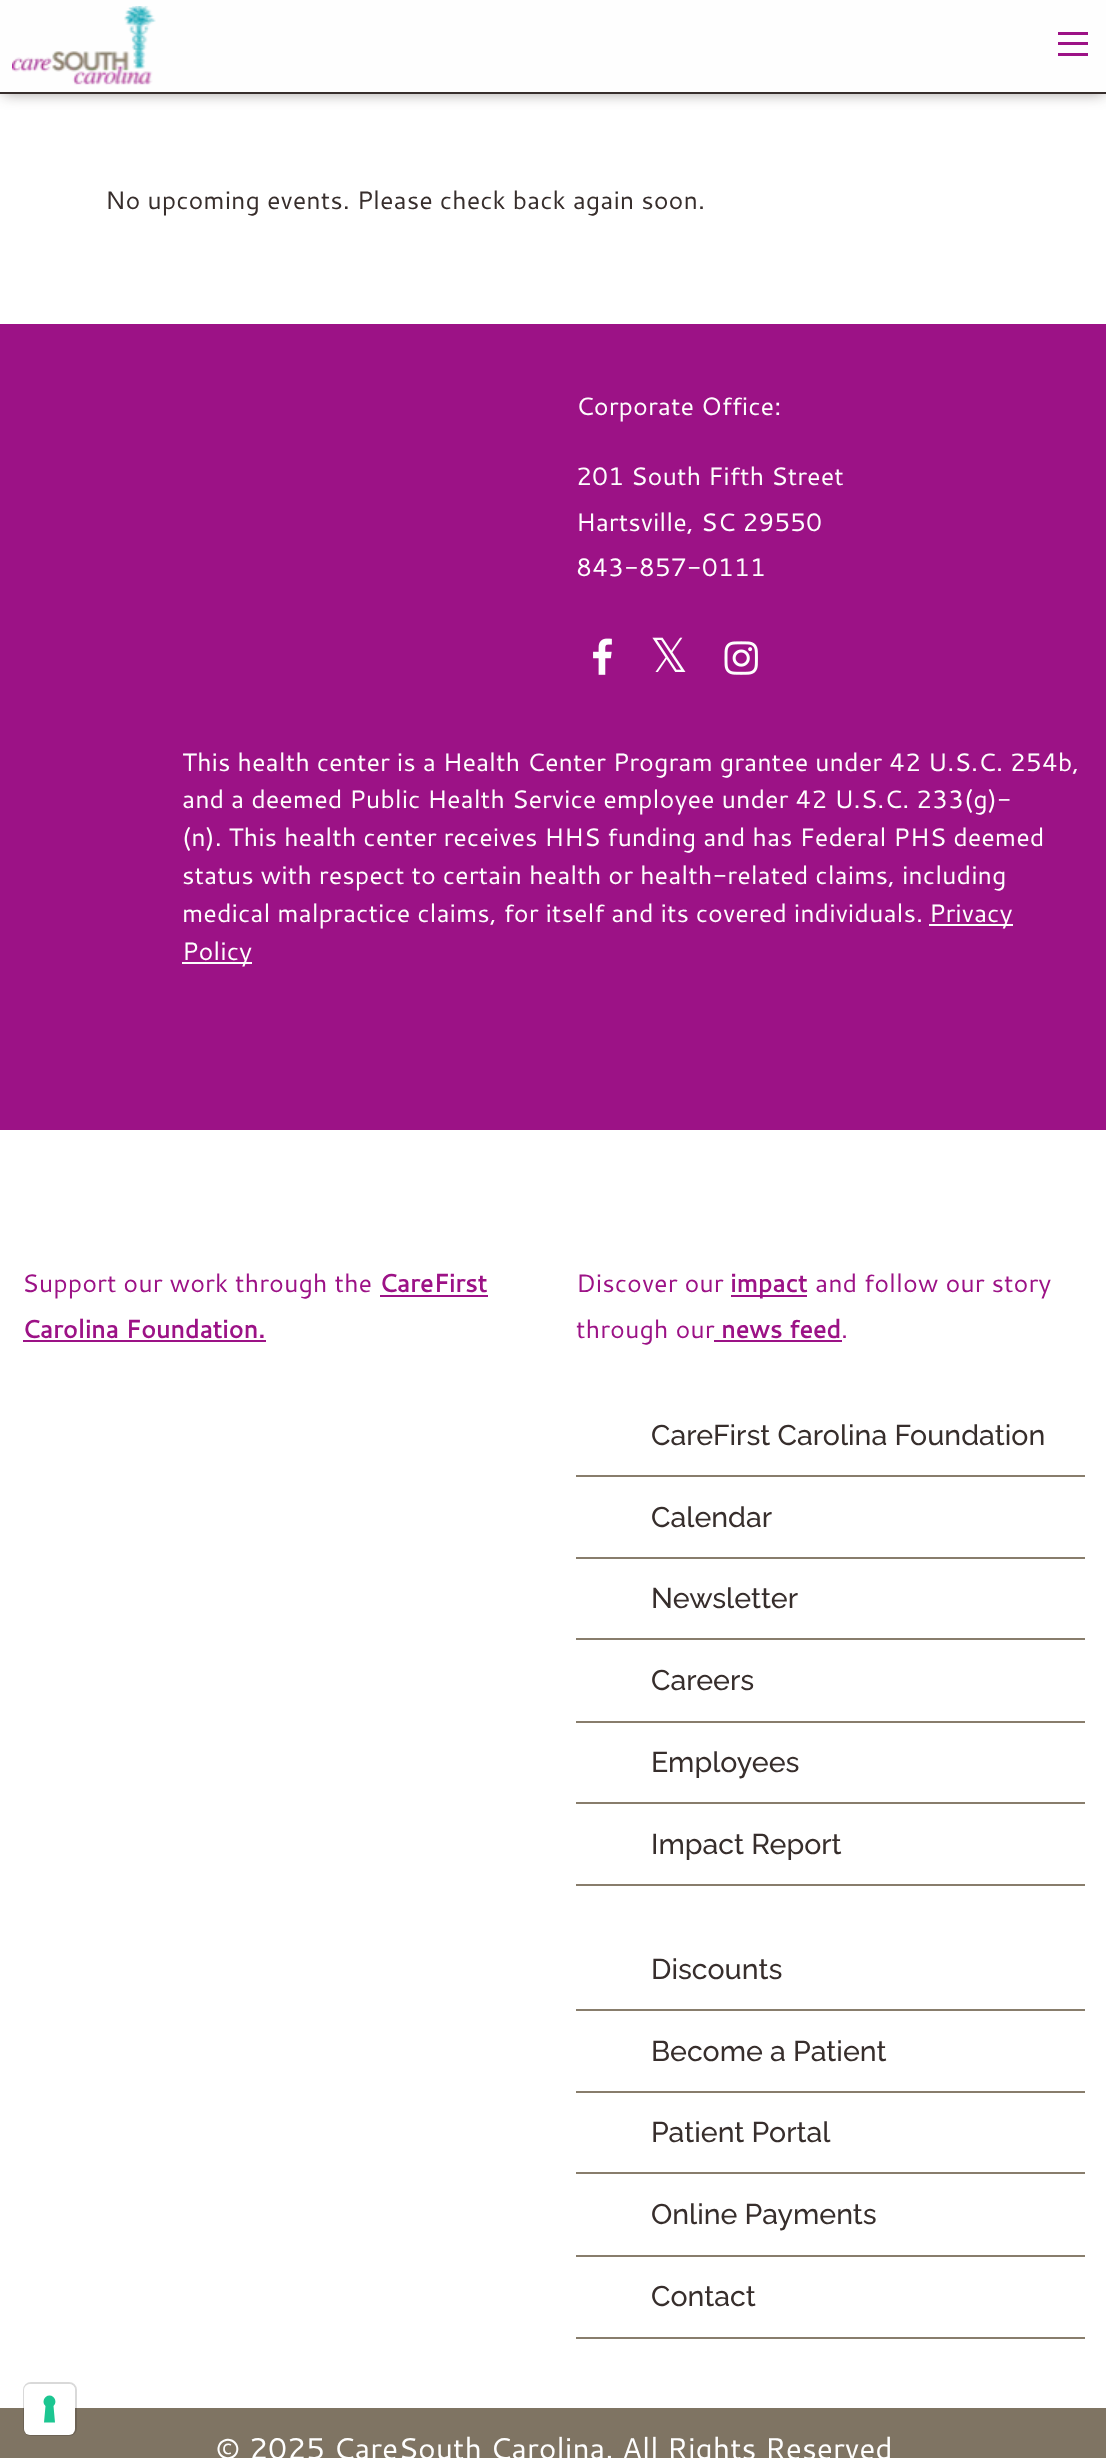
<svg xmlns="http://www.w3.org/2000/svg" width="1106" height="2458">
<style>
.a{font:25.2px Cantarell;fill:#372e2c}
.b{font:25.2px Cantarell;fill:#fefefe}
.c{font:47px DejaVu Sans;fill:#fefefe}
.d{font:25.2px Cantarell;fill:#9c1286}
.e{font:bold 25.2px Cantarell;fill:#9c1286}
.f{font:500 28.5px Raleway;fill:#372e2c}
.g{font:30px Cantarell;fill:#fefefe}
</style>
<rect width="100%" height="100%" fill="#fff"/>
<path fill="#372e2c80" filter="blur(7.5px)" d="M3 6h1101v87H3z"/>
<path fill="#fefefe" d="M0 0h1106v92H0z"/>
<path fill="#372e2c" d="M0 92h1106v2H0z"/>
<image href="1.png" x="12" y="6" width="144" height="79"/>
<path fill="#9c1286" d="M1058 53h30v3H1058z"/>
<path fill="#9c1286" d="M1058 42h30v3H1058z"/>
<path fill="#9c1286" d="M1058 32h30v3H1058z"/>
<path fill="#9c1286" d="M0 324h1106v806H0z"/>
<image href="2.png" x="593" y="638" width="19" height="37"/>
<image href="3.png" x="724" y="641" width="34" height="34"/>
<path fill="#fefefe" d="M929 924h84v2H929z"/>
<path fill="#fefefe" d="M182 962h70v2H182z"/>
<path fill="#9c1286" d="M380 1295h108v2H380z"/>
<path fill="#9c1286" d="M23 1340h243v2H23z"/>
<path fill="#9c1286" d="M731 1295h76v2H731z"/>
<path fill="#9c1286" d="M714 1340h128v2H714z"/>
<path fill="#887d6c" d="M576 1475h509v2H576z"/>
<path fill="#887d6c" d="M576 1557h509v2H576z"/>
<path fill="#887d6c" d="M576 1638h509v2H576z"/>
<path fill="#887d6c" d="M576 1721h509v2H576z"/>
<path fill="#887d6c" d="M576 1802h509v2H576z"/>
<path fill="#887d6c" d="M576 1884h509v2H576z"/>
<path fill="#887d6c" d="M576 2009h509v2H576z"/>
<path fill="#887d6c" d="M576 2091h509v2H576z"/>
<path fill="#887d6c" d="M576 2172h509v2H576z"/>
<path fill="#887d6c" d="M576 2255h509v2H576z"/>
<path fill="#887d6c" d="M576 2337h509v2H576z"/>
<path fill="#7f7463" d="M0 2408h1106v50H0z"/>
<rect fill="none" stroke="#00000026" stroke-width="2" x="24" y="2383" width="52" height="52" rx="7"/>
<rect fill="#fff" x="24" y="2384" width="51" height="51" rx="6"/>
<path fill="#1cc691" fill-rule="evenodd" d="M49.5 2395.5c5.5 0 8 7 4 10.5l1.5 16.5h-11l1.5-16.5c-4-3.5-1.5-10.5 4-10.5z"/>
<text class="a" x="105" y="209">No upcoming events. Please check back again soon.</text>
<text class="b" x="576" y="415">Corporate Office:</text>
<text class="b" x="576" y="485">201 South Fifth Street</text>
<text class="b" x="576" y="531">Hartsville, SC 29550</text>
<text class="b" x="576" y="576">843-857-0111</text>
<text class="c" x="650" y="672">𝕏</text>
<text class="b" x="182" y="771">This health center is a Health Center Program grantee under 42 U.S.C. 254b,</text>
<text class="b" x="182" y="808">and a deemed Public Health Service employee under 42 U.S.C. 233(g)-</text>
<text class="b" x="182" y="846">(n). This health center receives HHS funding and has Federal PHS deemed</text>
<text class="b" x="182" y="884">status with respect to certain health or health-related claims, including</text>
<text class="b" x="182" y="922">medical malpractice claims, for itself and its covered individuals.</text>
<text class="b" x="929" y="922">Privacy</text>
<text class="b" x="182" y="960">Policy</text>
<text class="d" x="22" y="1292">Support our work through the</text>
<text class="e" x="379" y="1292">CareFirst</text>
<text class="e" x="22" y="1338">Carolina Foundation.</text>
<text class="d" x="576" y="1292">Discover our</text>
<text class="e" x="730" y="1292">impact</text>
<text class="d" x="815" y="1292">and follow our story</text>
<text class="d" x="576" y="1338">through our</text>
<text class="e" x="721" y="1338">news feed</text>
<text class="d" x="841" y="1338">.</text>
<text class="f" x="651" y="1445">CareFirst Carolina Foundation</text>
<text class="f" x="651" y="1527">Calendar</text>
<text class="f" x="651" y="1608">Newsletter</text>
<text class="f" x="651" y="1690">Careers</text>
<text class="f" x="651" y="1772">Employees</text>
<text class="f" x="651" y="1854">Impact Report</text>
<text class="f" x="651" y="1979">Discounts</text>
<text class="f" x="651" y="2061">Become a Patient</text>
<text class="f" x="651" y="2142">Patient Portal</text>
<text class="f" x="651" y="2224">Online Payments</text>
<text class="f" x="651" y="2306">Contact</text>
<text class="g" x="215" y="2459">© 2025 CareSouth Carolina. All Rights Reserved</text>
</svg>
